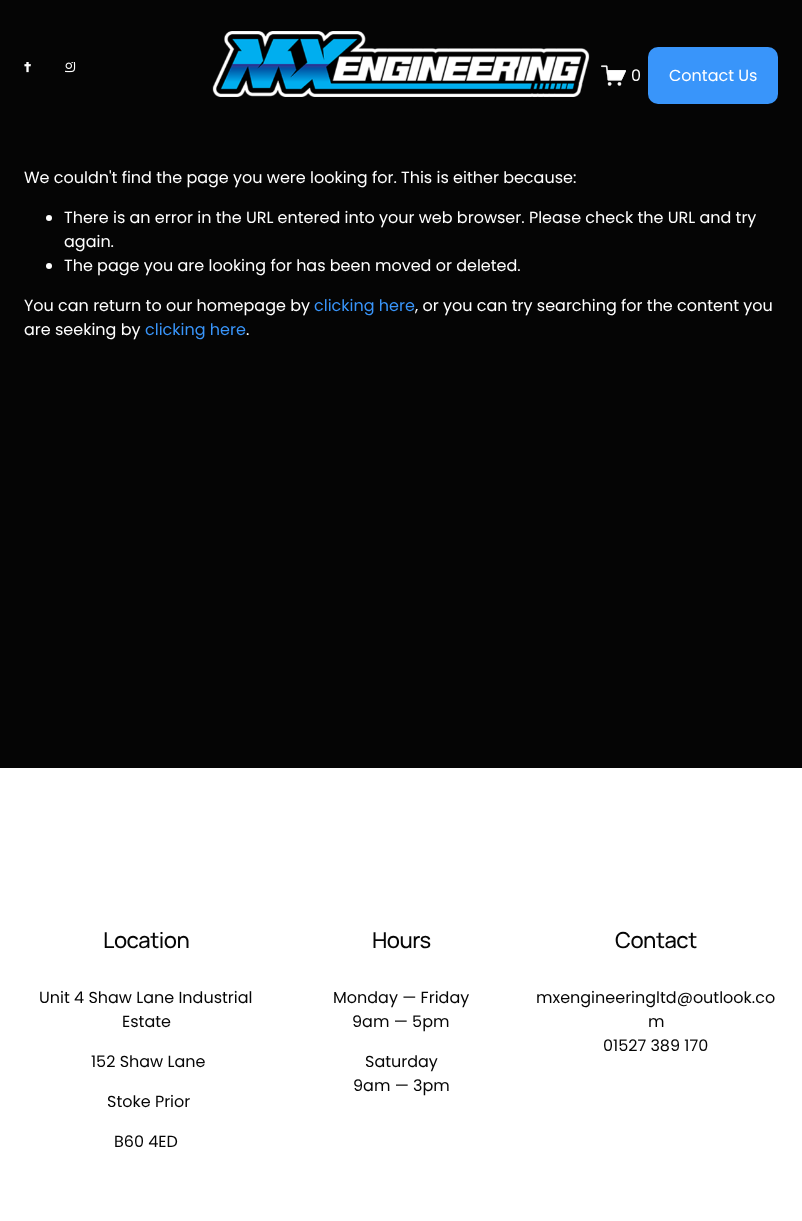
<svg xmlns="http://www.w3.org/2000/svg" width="802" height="1221">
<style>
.a{font:16px Poppins;fill:#fff}
.b{font:16px Poppins;fill:#3995fa}
.c{font:500 22px Manrope;letter-spacing:-0.5px;fill:#050505}
.d{font:16px Poppins;fill:#050505}
</style>
<rect width="100%" height="100%" fill="#050505"/>
<image href="1.png" x="24" y="62" width="7" height="11"/>
<image href="2.png" x="65" y="62" width="11" height="11"/>
<image href="3.png" x="212" y="31" width="378" height="66"/>
<image href="4.png" x="601" y="65" width="25" height="21"/>
<rect fill="#3995fa" x="648" y="47" width="130" height="57" rx="10"/>
<circle fill="#fff" cx="49" cy="218" r="3"/>
<circle fill="#fff" cx="49" cy="266" r="3"/>
<path fill="#fff" d="M0 768h802v453H0z"/>
<text class="a" x="631" y="81">0</text>
<text class="a" x="669" y="81">Contact Us</text>
<text class="a" x="24" y="183">We couldn't find the page you were looking for. This is either because:</text>
<text class="a" x="64" y="223">There is an error in the URL entered into your web browser. Please check the URL and try</text>
<text class="a" x="64" y="247">again.</text>
<text class="a" x="64" y="271">The page you are looking for has been moved or deleted.</text>
<text class="a" x="24" y="311">You can return to our homepage by</text>
<text class="b" x="314" y="311">clicking here</text>
<text class="a" x="415" y="311">, or you can try searching for the content you</text>
<text class="a" x="24" y="335">are seeking by</text>
<text class="b" x="145" y="335">clicking here</text>
<text class="a" x="246" y="335">.</text>
<text class="c" x="103" y="948">Location</text>
<text class="d" x="39" y="1003">Unit 4 Shaw Lane Industrial</text>
<text class="d" x="122" y="1027">Estate</text>
<text class="d" x="91" y="1067">152 Shaw Lane</text>
<text class="d" x="107" y="1107">Stoke Prior</text>
<text class="d" x="114" y="1147">B60 4ED</text>
<text class="c" x="372" y="948">Hours</text>
<text class="d" x="333" y="1003">Monday — Friday</text>
<text class="d" x="352" y="1027">9am — 5pm</text>
<text class="d" x="365" y="1067">Saturday</text>
<text class="d" x="353" y="1091">9am — 3pm</text>
<text class="c" x="615" y="948">Contact</text>
<text class="d" x="536" y="1003">mxengineeringltd@outlook.co</text>
<text class="d" x="648" y="1027">m</text>
<text class="d" x="603" y="1051">01527 389 170</text>
</svg>
